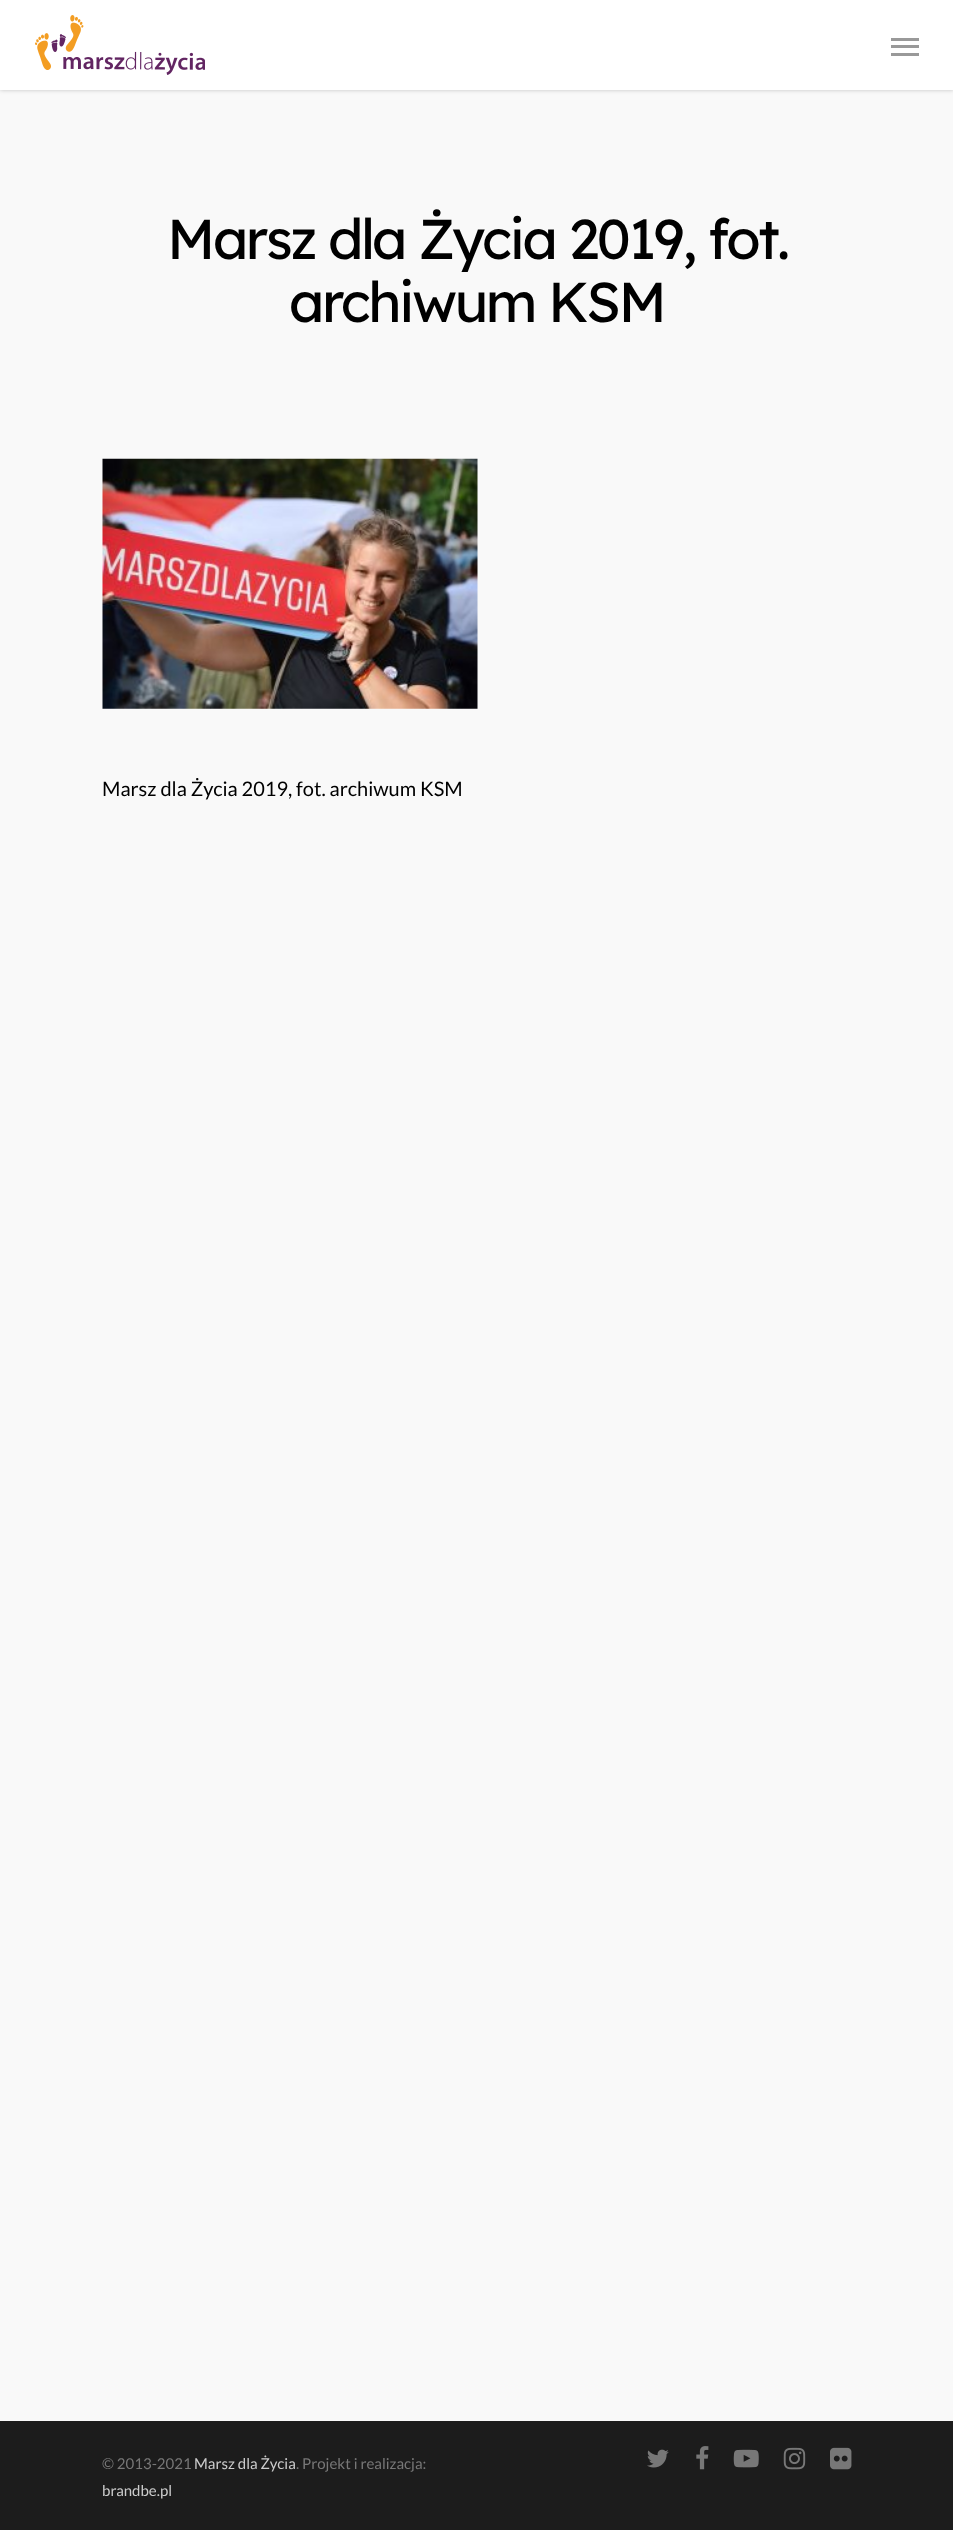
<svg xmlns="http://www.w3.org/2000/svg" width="953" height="2530">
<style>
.a{font:56px Lexend Deca;letter-spacing:-2.5px;fill:#000}
.b{font:20px Lato;fill:#000}
.c{font:15px Lato;fill:#777}
.d{font:15px Lato;fill:#ccc}
</style>
<rect width="100%" height="100%" fill="#f9f9f9"/>
<path fill="#00000038" filter="blur(2px)" d="M0 0h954v90H0z"/>
<path fill="#fff" d="M0 0h953v90H0z"/>
<image href="1.png" x="35" y="15" width="170" height="60"/>
<path fill="#999" d="M891 38h28v3H891z"/>
<path fill="#999" d="M891 53h28v3H891z"/>
<path fill="#999" d="M891 45h28v3H891z"/>
<image href="2.png" x="102" y="458" width="376" height="251"/>
<path fill="#1c1c1c" d="M0 2421h953v109H0z"/>
<image href="3.png" x="647" y="2449" width="22" height="19"/>
<image href="4.png" x="696" y="2446" width="13" height="24"/>
<image href="5.png" x="733" y="2449" width="26" height="19"/>
<image href="6.png" x="783" y="2447" width="23" height="23"/>
<image href="7.png" x="830" y="2447" width="22" height="23"/>
<text class="a" x="167" y="259">Marsz dla Życia 2019, fot.</text>
<text class="a" x="289" y="322">archiwum KSM</text>
<text class="b" x="102" y="796">Marsz dla Życia 2019, fot. archiwum KSM</text>
<text class="c" x="102" y="2469">© 2013-2021</text>
<text class="d" x="194" y="2469">Marsz dla Życia</text>
<text class="c" x="296" y="2469">. Projekt i realizacja:</text>
<text class="d" x="102" y="2496">brandbe.pl</text>
</svg>
